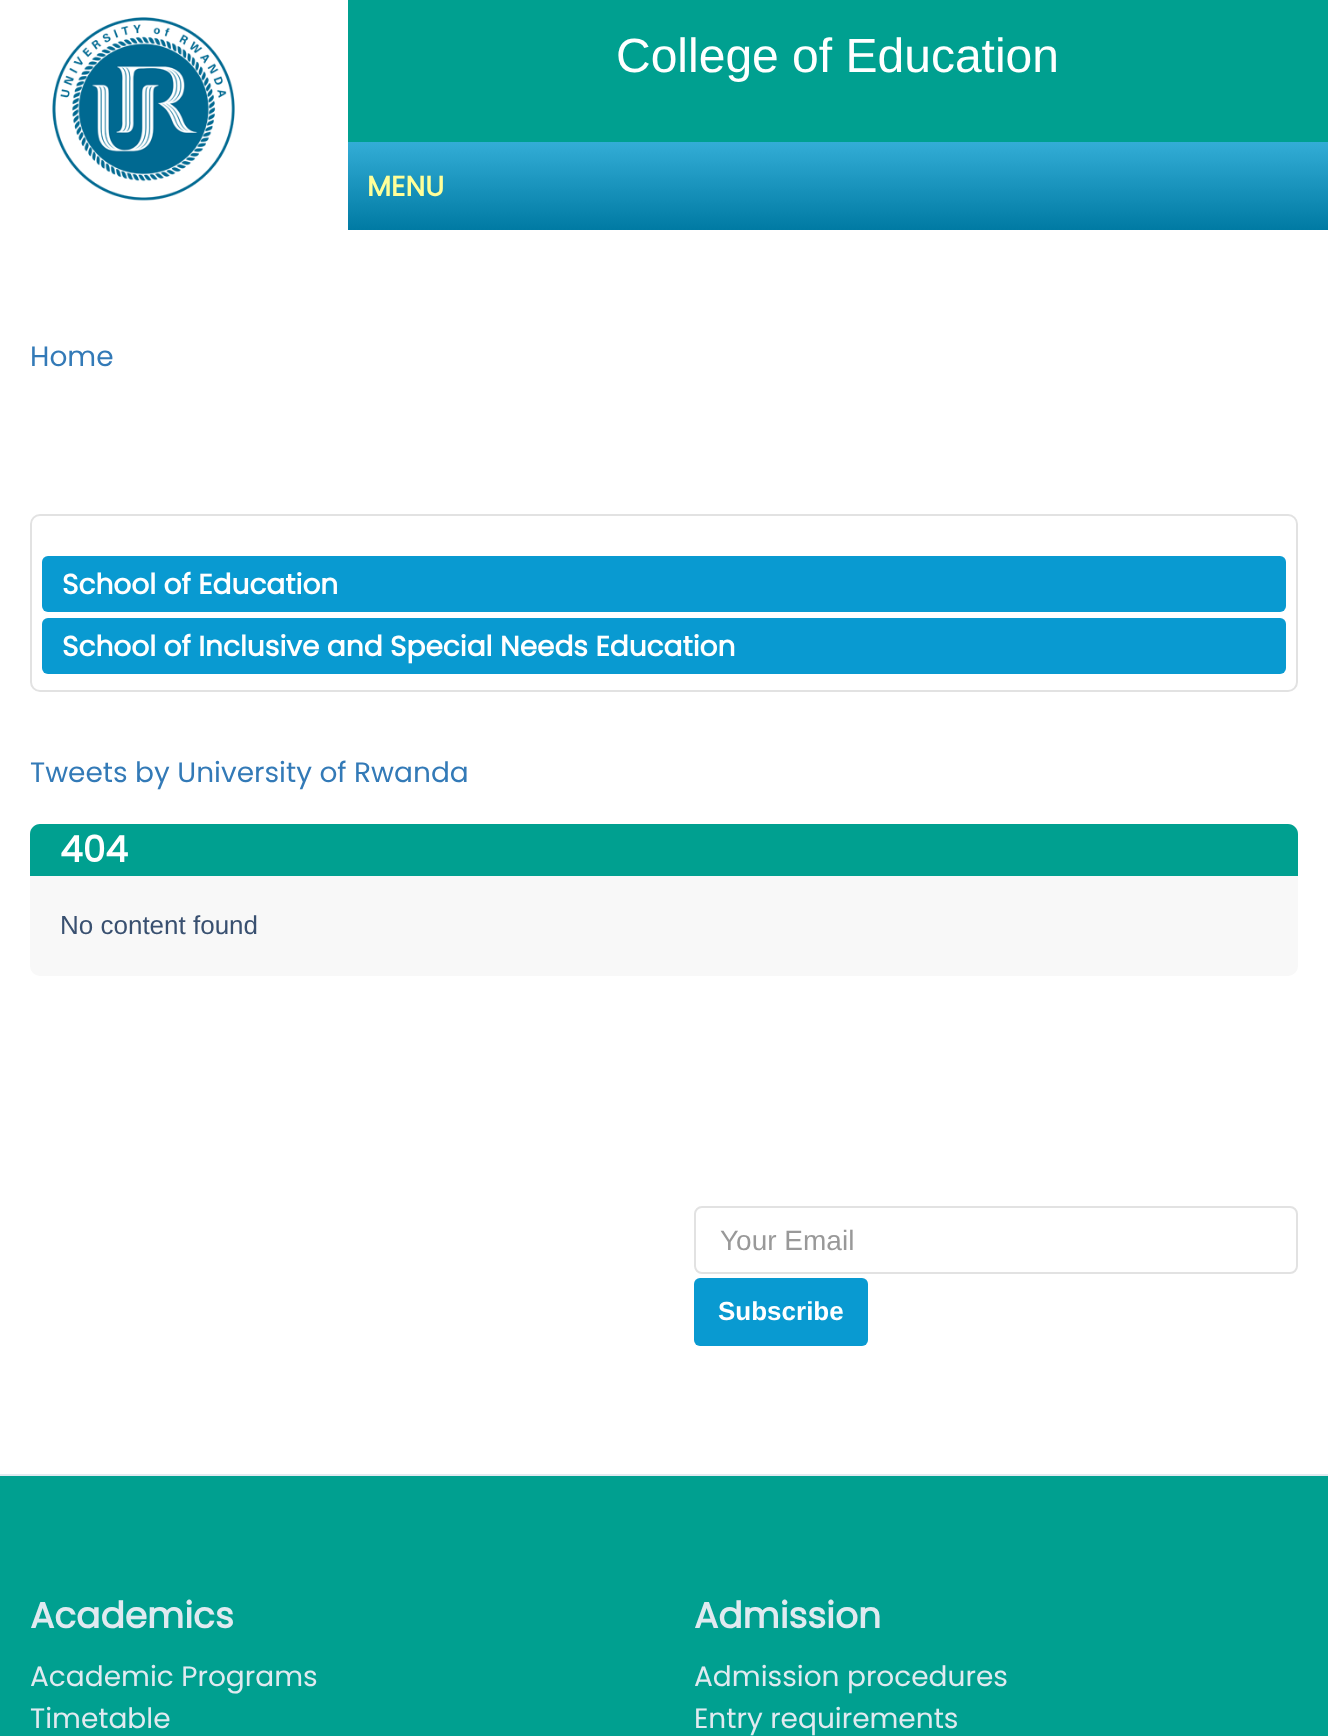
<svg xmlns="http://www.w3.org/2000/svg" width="1328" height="1736">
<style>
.a{font:48px Liberation Sans;fill:#fff}
.b{font:bold 28px Poppins;fill:#ff9}
.c{font:28px Poppins;fill:#337ab7}
.d{font:bold 28px Poppins;fill:#fff}
.e{font:bold 36px Poppins;fill:#fff}
.f{font:26px Liberation Sans;fill:#395070}
.g{font:28px Liberation Sans;fill:#999}
.h{font:bold 26px Liberation Sans;fill:#fff}
.i{font:bold 36px Poppins;fill:#e0eaf0}
.j{font:28px Poppins;fill:#e0eaf0}
</style>
<defs>
<linearGradient id="g1" gradientUnits="userSpaceOnUse" x1="838" y1="142" x2="838" y2="230"><stop offset="0" stop-color="#33add6"/><stop offset="1" stop-color="#007aa3"/></linearGradient>
</defs>
<rect width="100%" height="100%" fill="#fff"/>
<image href="1.png" x="52" y="17" width="183" height="184"/>
<path fill="#00a090" d="M348 0h980v142H348z"/>
<path fill="url(#g1)" d="M348 142h980v88H348z"/>
<rect fill="none" stroke="#e2e2e2" stroke-width="2" x="31" y="515" width="1266" height="176" rx="9"/>
<rect fill="#099ad1" x="42" y="556" width="1244" height="56" rx="6"/>
<rect fill="#099ad1" x="42" y="618" width="1244" height="56" rx="6"/>
<rect fill="#f8f8f8" x="30" y="824" width="1268" height="152" rx="10"/>
<path fill="#00a090" d="M40 824h1248c5.5 0 10 4.5 10 10v42h-1268v-42c0-5.5 4.5-10 10-10z"/>
<rect fill="none" stroke="#e2e2e2" stroke-width="2" x="695" y="1207" width="602" height="66" rx="7"/>
<rect fill="#099ad1" x="694" y="1278" width="174" height="68" rx="6"/>
<path fill="#00a090" d="M0 1476h1328v260H0z"/>
<path fill="#e0eaf0" d="M0 1474h1328v2H0z"/>
<text class="a" x="616" y="72">College of Education</text>
<text class="b" x="367" y="196">MENU</text>
<text class="c" x="30" y="366">Home</text>
<text class="d" x="62" y="594">School of Education</text>
<text class="d" x="62" y="656">School of Inclusive and Special Needs Education</text>
<text class="c" x="30" y="782">Tweets by University of Rwanda</text>
<text class="e" x="60" y="862">404</text>
<text class="f" x="60" y="934">No content found</text>
<text class="g" x="720" y="1250">Your Email</text>
<text class="h" x="718" y="1320">Subscribe</text>
<text class="i" x="30" y="1628">Academics</text>
<text class="j" x="30" y="1686">Academic Programs</text>
<text class="j" x="30" y="1728">Timetable</text>
<text class="i" x="694" y="1628">Admission</text>
<text class="j" x="694" y="1686">Admission procedures</text>
<text class="j" x="694" y="1728">Entry requirements</text>
</svg>
